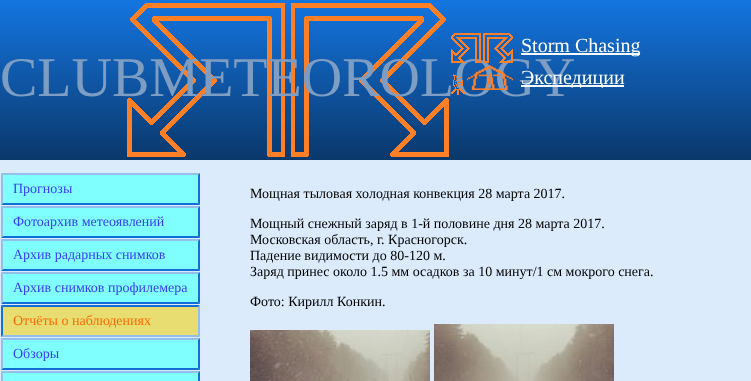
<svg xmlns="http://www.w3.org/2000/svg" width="751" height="381">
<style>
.a{font:56px Liberation Serif;fill:#7d9dc3}
.b{font:20px Liberation Serif;fill:#fff}
.c{font:14px Liberation Serif;fill:#383ef8}
.d{font:14px Liberation Serif;fill:#ff6a06}
.e{font:14px Liberation Serif;fill:#000}
</style>
<defs>
<linearGradient id="g1" gradientUnits="userSpaceOnUse" x1="376" y1="160" x2="376" y2="0"><stop offset="0" stop-color="#0a386b"/><stop offset="1" stop-color="#1475e0"/></linearGradient>
</defs>
<rect width="100%" height="100%" fill="#dcebfc"/>
<path fill="url(#g1)" d="M0 0h751v160H0z"/>
<image href="1.png" x="127" y="3" width="322" height="154"/>
<path fill="#fff" d="M521 53h119v2H521z"/>
<path fill="#80ffff" d="M1 173h199v32H1z"/>
<path fill="#94bfeb" d="M1 173h199l-2 2h-195z"/>
<path fill="#126fd6" d="M200 173v32l-2-2v-28z"/>
<path fill="#126fd6" d="M200 205h-199l2-2h195z"/>
<path fill="#94bfeb" d="M1 205v-32l2 2v28z"/>
<path fill="#80ffff" d="M1 206h199v32H1z"/>
<path fill="#94bfeb" d="M1 206h199l-2 2h-195z"/>
<path fill="#126fd6" d="M200 206v32l-2-2v-28z"/>
<path fill="#126fd6" d="M200 238h-199l2-2h195z"/>
<path fill="#94bfeb" d="M1 238v-32l2 2v28z"/>
<path fill="#80ffff" d="M1 239h199v32H1z"/>
<path fill="#94bfeb" d="M1 239h199l-2 2h-195z"/>
<path fill="#126fd6" d="M200 239v32l-2-2v-28z"/>
<path fill="#126fd6" d="M200 271h-199l2-2h195z"/>
<path fill="#94bfeb" d="M1 271v-32l2 2v28z"/>
<path fill="#80ffff" d="M1 272h199v32H1z"/>
<path fill="#94bfeb" d="M1 272h199l-2 2h-195z"/>
<path fill="#126fd6" d="M200 272v32l-2-2v-28z"/>
<path fill="#126fd6" d="M200 304h-199l2-2h195z"/>
<path fill="#94bfeb" d="M1 304v-32l2 2v28z"/>
<path fill="#e7dd71" d="M1 305h199v32H1z"/>
<path fill="#126fd6" d="M1 305h199l-2 2h-195z"/>
<path fill="#94bfeb" d="M200 305v32l-2-2v-28z"/>
<path fill="#94bfeb" d="M200 337h-199l2-2h195z"/>
<path fill="#126fd6" d="M1 337v-32l2 2v28z"/>
<path fill="#80ffff" d="M1 338h199v32H1z"/>
<path fill="#94bfeb" d="M1 338h199l-2 2h-195z"/>
<path fill="#126fd6" d="M200 338v32l-2-2v-28z"/>
<path fill="#126fd6" d="M200 370h-199l2-2h195z"/>
<path fill="#94bfeb" d="M1 370v-32l2 2v28z"/>
<path fill="#80ffff" d="M1 371h199v10H1z"/>
<path fill="#94bfeb" d="M1 371h199l-2 2h-195z"/>
<path fill="#126fd6" d="M200 371v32l-2-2v-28z"/>
<path fill="#94bfeb" d="M1 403v-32l2 2v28z"/>
<image href="4.png" x="250" y="330" width="180" height="51"/>
<image href="5.png" x="434" y="324" width="180" height="57"/>
<text class="a" x="0" y="96">CLUBMETEOROLOGY</text>
<image href="2.png" x="451" y="33" width="62" height="30"/>
<text class="b" x="521" y="52">Storm Chasing</text>
<image href="3.png" x="451" y="65" width="62" height="30"/>
<path fill="#fff" d="M521 85h103v2H521z"/>
<text class="b" x="521" y="84">Экспедиции</text>
<text class="c" x="13" y="193">Прогнозы</text>
<text class="c" x="13" y="226">Фотоархив метеоявлений</text>
<text class="c" x="13" y="259">Архив радарных снимков</text>
<text class="c" x="13" y="292">Архив снимков профилемера</text>
<text class="d" x="13" y="325">Отчёты о наблюдениях</text>
<text class="c" x="13" y="358">Обзоры</text>
<text class="e" x="250" y="198">Мощная тыловая холодная конвекция 28 марта 2017.</text>
<text class="e" x="250" y="228">Мощный снежный заряд в 1-й половине дня 28 марта 2017.</text>
<text class="e" x="250" y="244">Московская область, г. Красногорск.</text>
<text class="e" x="250" y="260">Падение видимости до 80-120 м.</text>
<text class="e" x="250" y="276">Заряд принес около 1.5 мм осадков за 10 минут/1 см мокрого снега.</text>
<text class="e" x="250" y="306">Фото: Кирилл Конкин.</text>
</svg>
